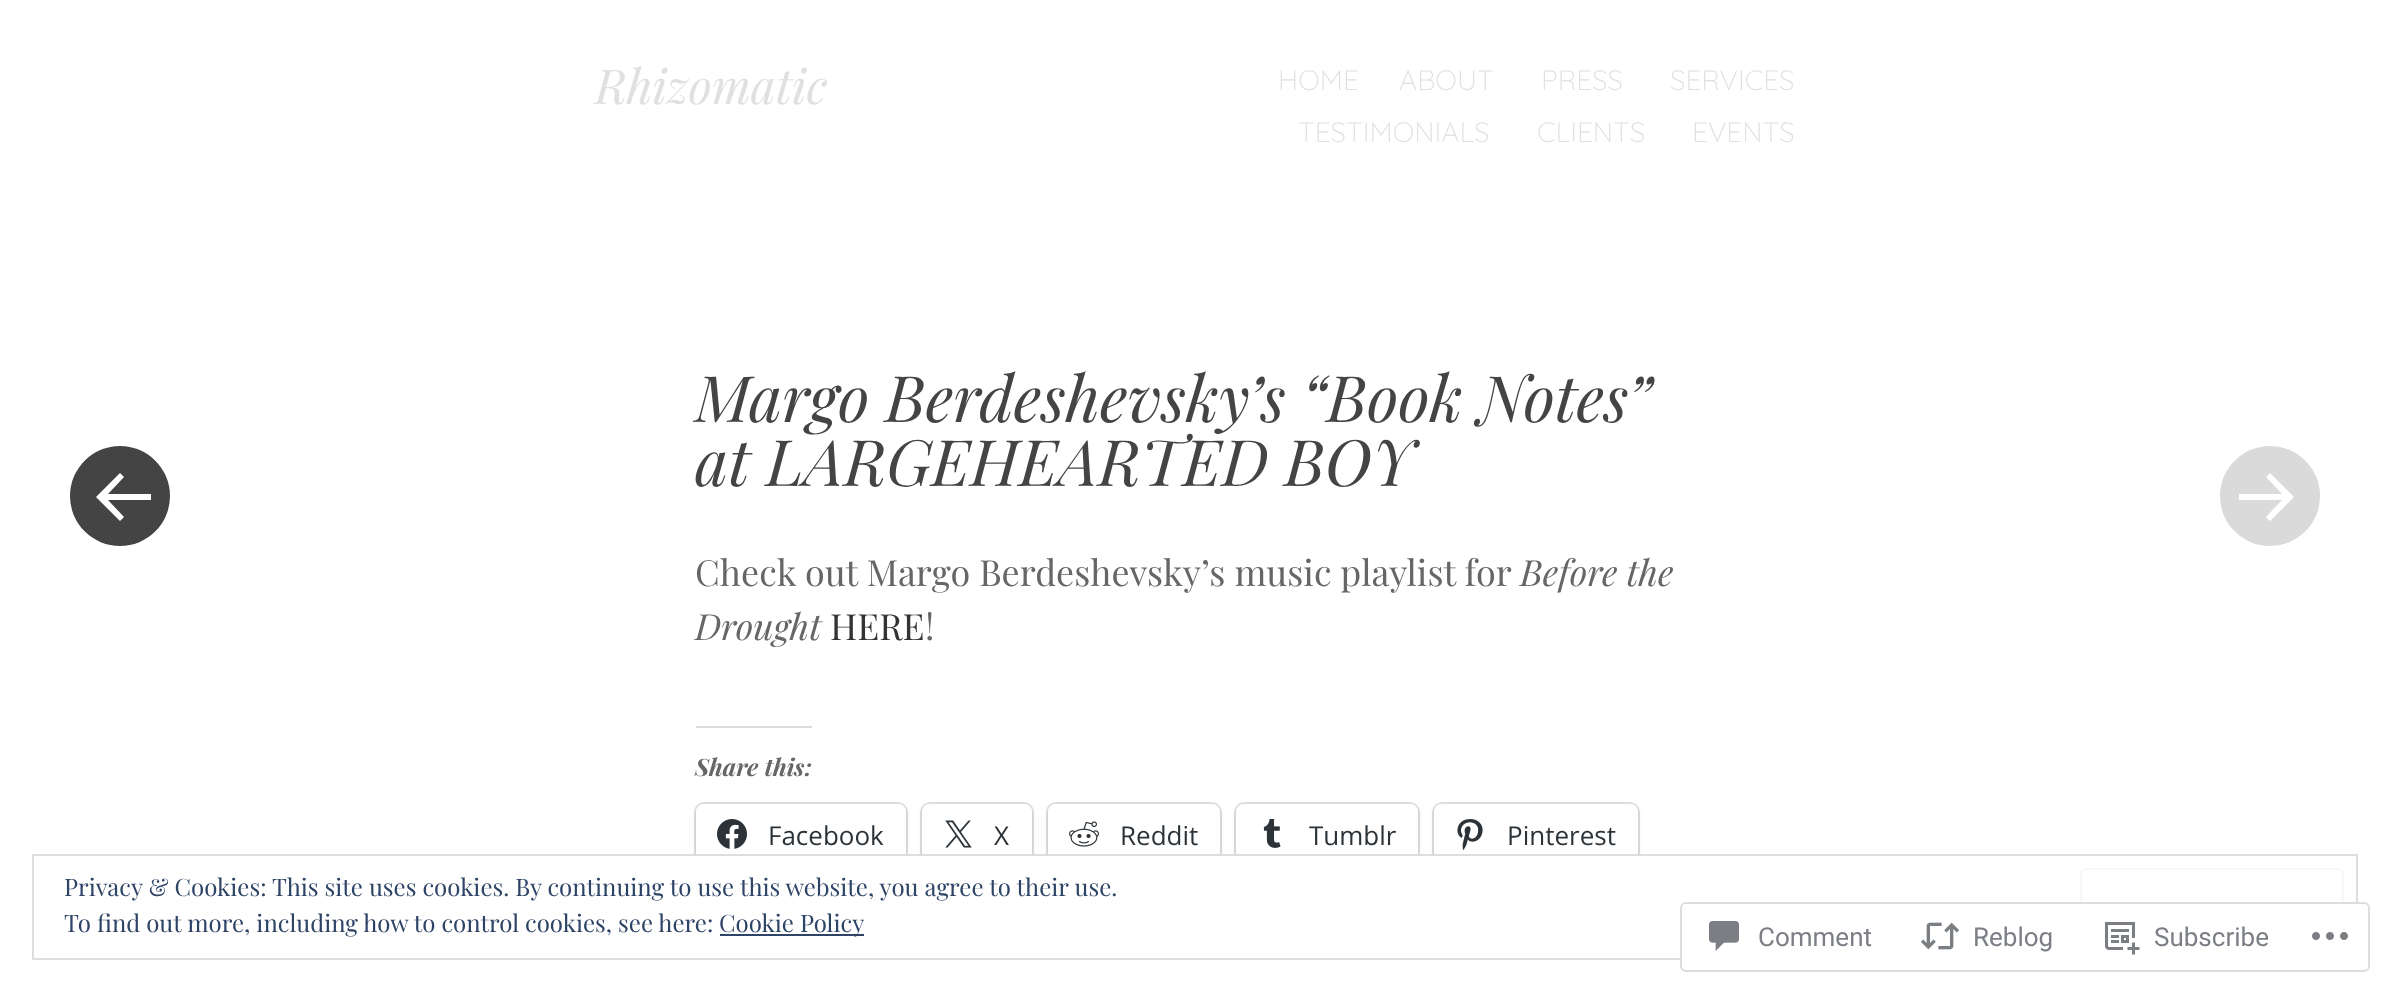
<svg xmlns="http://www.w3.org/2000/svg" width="2389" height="991">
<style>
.a{font:italic 48px Playfair Display;fill:#e0e0e0}
.b{font:300 28px Quicksand;fill:#e0e0e0}
.c{font:italic 64px Playfair Display;fill:#444}
.d{font:36px Playfair Display;fill:#666}
.e{font:italic 36px Playfair Display;fill:#666}
.f{font:36px Playfair Display;fill:#333}
.g{font:italic bold 24px Playfair Display;fill:#666}
.h{font:26px Open Sans;fill:#2c3338}
.i{font:24px Playfair Display;fill:#2e4467}
.j{font:26px Roboto;fill:#7b7f85}
</style>
<rect width="100%" height="100%" fill="#fff"/>
<path fill="#dcdcde" d="M696 726h116v2H696z"/>
<rect fill="none" stroke="#e0e0e0" stroke-width="2" x="695" y="803" width="212" height="62" rx="9"/>
<rect fill="#0000001f" filter="blur(2px)" x="696" y="806" width="210" height="60" rx="8"/>
<rect fill="#fff" x="696" y="804" width="210" height="60" rx="8"/>
<image href="1.png" x="717" y="819" width="30" height="30"/>
<rect fill="none" stroke="#e0e0e0" stroke-width="2" x="921" y="803" width="112" height="62" rx="9"/>
<rect fill="#0000001f" filter="blur(2px)" x="922" y="806" width="110" height="60" rx="8"/>
<rect fill="#fff" x="922" y="804" width="110" height="60" rx="8"/>
<image href="2.png" x="945" y="820" width="27" height="28"/>
<rect fill="none" stroke="#e0e0e0" stroke-width="2" x="1047" y="803" width="174" height="62" rx="9"/>
<rect fill="#0000001f" filter="blur(2px)" x="1048" y="806" width="172" height="60" rx="8"/>
<rect fill="#fff" x="1048" y="804" width="172" height="60" rx="8"/>
<image href="3.png" x="1069" y="821" width="30" height="26"/>
<rect fill="none" stroke="#e0e0e0" stroke-width="2" x="1235" y="803" width="184" height="62" rx="9"/>
<rect fill="#0000001f" filter="blur(2px)" x="1236" y="806" width="182" height="60" rx="8"/>
<rect fill="#fff" x="1236" y="804" width="182" height="60" rx="8"/>
<image href="4.png" x="1263" y="819" width="18" height="29"/>
<rect fill="none" stroke="#e0e0e0" stroke-width="2" x="1433" y="803" width="206" height="62" rx="9"/>
<rect fill="#0000001f" filter="blur(2px)" x="1434" y="806" width="204" height="60" rx="8"/>
<rect fill="#fff" x="1434" y="804" width="204" height="60" rx="8"/>
<image href="5.png" x="1457" y="819" width="26" height="32"/>
<circle fill="#444" cx="120" cy="496" r="50"/>
<path fill="#fff" d="M96 497l24 24l4-4l-16-17h43v-6h-43l16-17l-4-4z"/>
<circle fill="#dadada" cx="2270" cy="496" r="50"/>
<path fill="#fff" d="M2294 497l-24 24l-4-4l16-17h-43v-6h43l-16-17l4-4z"/>
<path fill="#fff" d="M693 856h948v13H693z"/>
<path fill="none" stroke="#dedede" stroke-width="2" d="M33 855h2324v104H33z"/>
<rect fill="none" stroke="#f8f8f8" stroke-width="2" x="2081" y="869" width="262" height="76" rx="5"/>
<path fill="#2e4467" d="M720 934h144v2H720z"/>
<rect fill="#fffffffa" stroke="#dddddf" stroke-width="2" x="1681" y="903" width="688" height="68" rx="5"/>
<image href="6.png" x="1709" y="921" width="30" height="30"/>
<image href="7.png" x="1920" y="922" width="40" height="28"/>
<image href="8.png" x="2105" y="922" width="35" height="33"/>
<image href="9.png" x="2312" y="932" width="36" height="8"/>
<text class="a" x="595" y="104">Rhizomatic</text>
<text class="b" x="1278" y="90">HOME</text>
<text class="b" x="1399" y="90">ABOUT</text>
<text class="b" x="1541" y="90">PRESS</text>
<text class="b" x="1670" y="90">SERVICES</text>
<text class="b" x="1298" y="142">TESTIMONIALS</text>
<text class="b" x="1537" y="142">CLIENTS</text>
<text class="b" x="1692" y="142">EVENTS</text>
<text class="c" x="695" y="422" word-spacing="-0.5">Margo Berdeshevsky’s “Book Notes”</text>
<text class="c" x="695" y="486">at LARGEHEARTED BOY</text>
<text class="d" x="695" y="586">Check out Margo Berdeshevsky’s music playlist for</text>
<text class="e" x="1520" y="586">Before the</text>
<text class="e" x="695" y="640">Drought</text>
<text class="f" x="830" y="640">HERE</text>
<text class="d" x="925" y="640">!</text>
<text class="g" x="695" y="776">Share this:</text>
<text class="h" x="768" y="845">Facebook</text>
<text class="h" x="994" y="845">X</text>
<text class="h" x="1120" y="845">Reddit</text>
<text class="h" x="1309" y="845">Tumblr</text>
<text class="h" x="1507" y="845">Pinterest</text>
<text class="i" x="64" y="896">Privacy &amp; Cookies: This site uses cookies. By continuing to use this website, you agree to their use.</text>
<text class="i" x="64" y="932">To find out more, including how to control cookies, see here:</text>
<text class="i" x="719" y="932">Cookie Policy</text>
<text class="j" x="1758" y="946">Comment</text>
<text class="j" x="1973" y="946">Reblog</text>
<text class="j" x="2154" y="946">Subscribe</text>
</svg>
